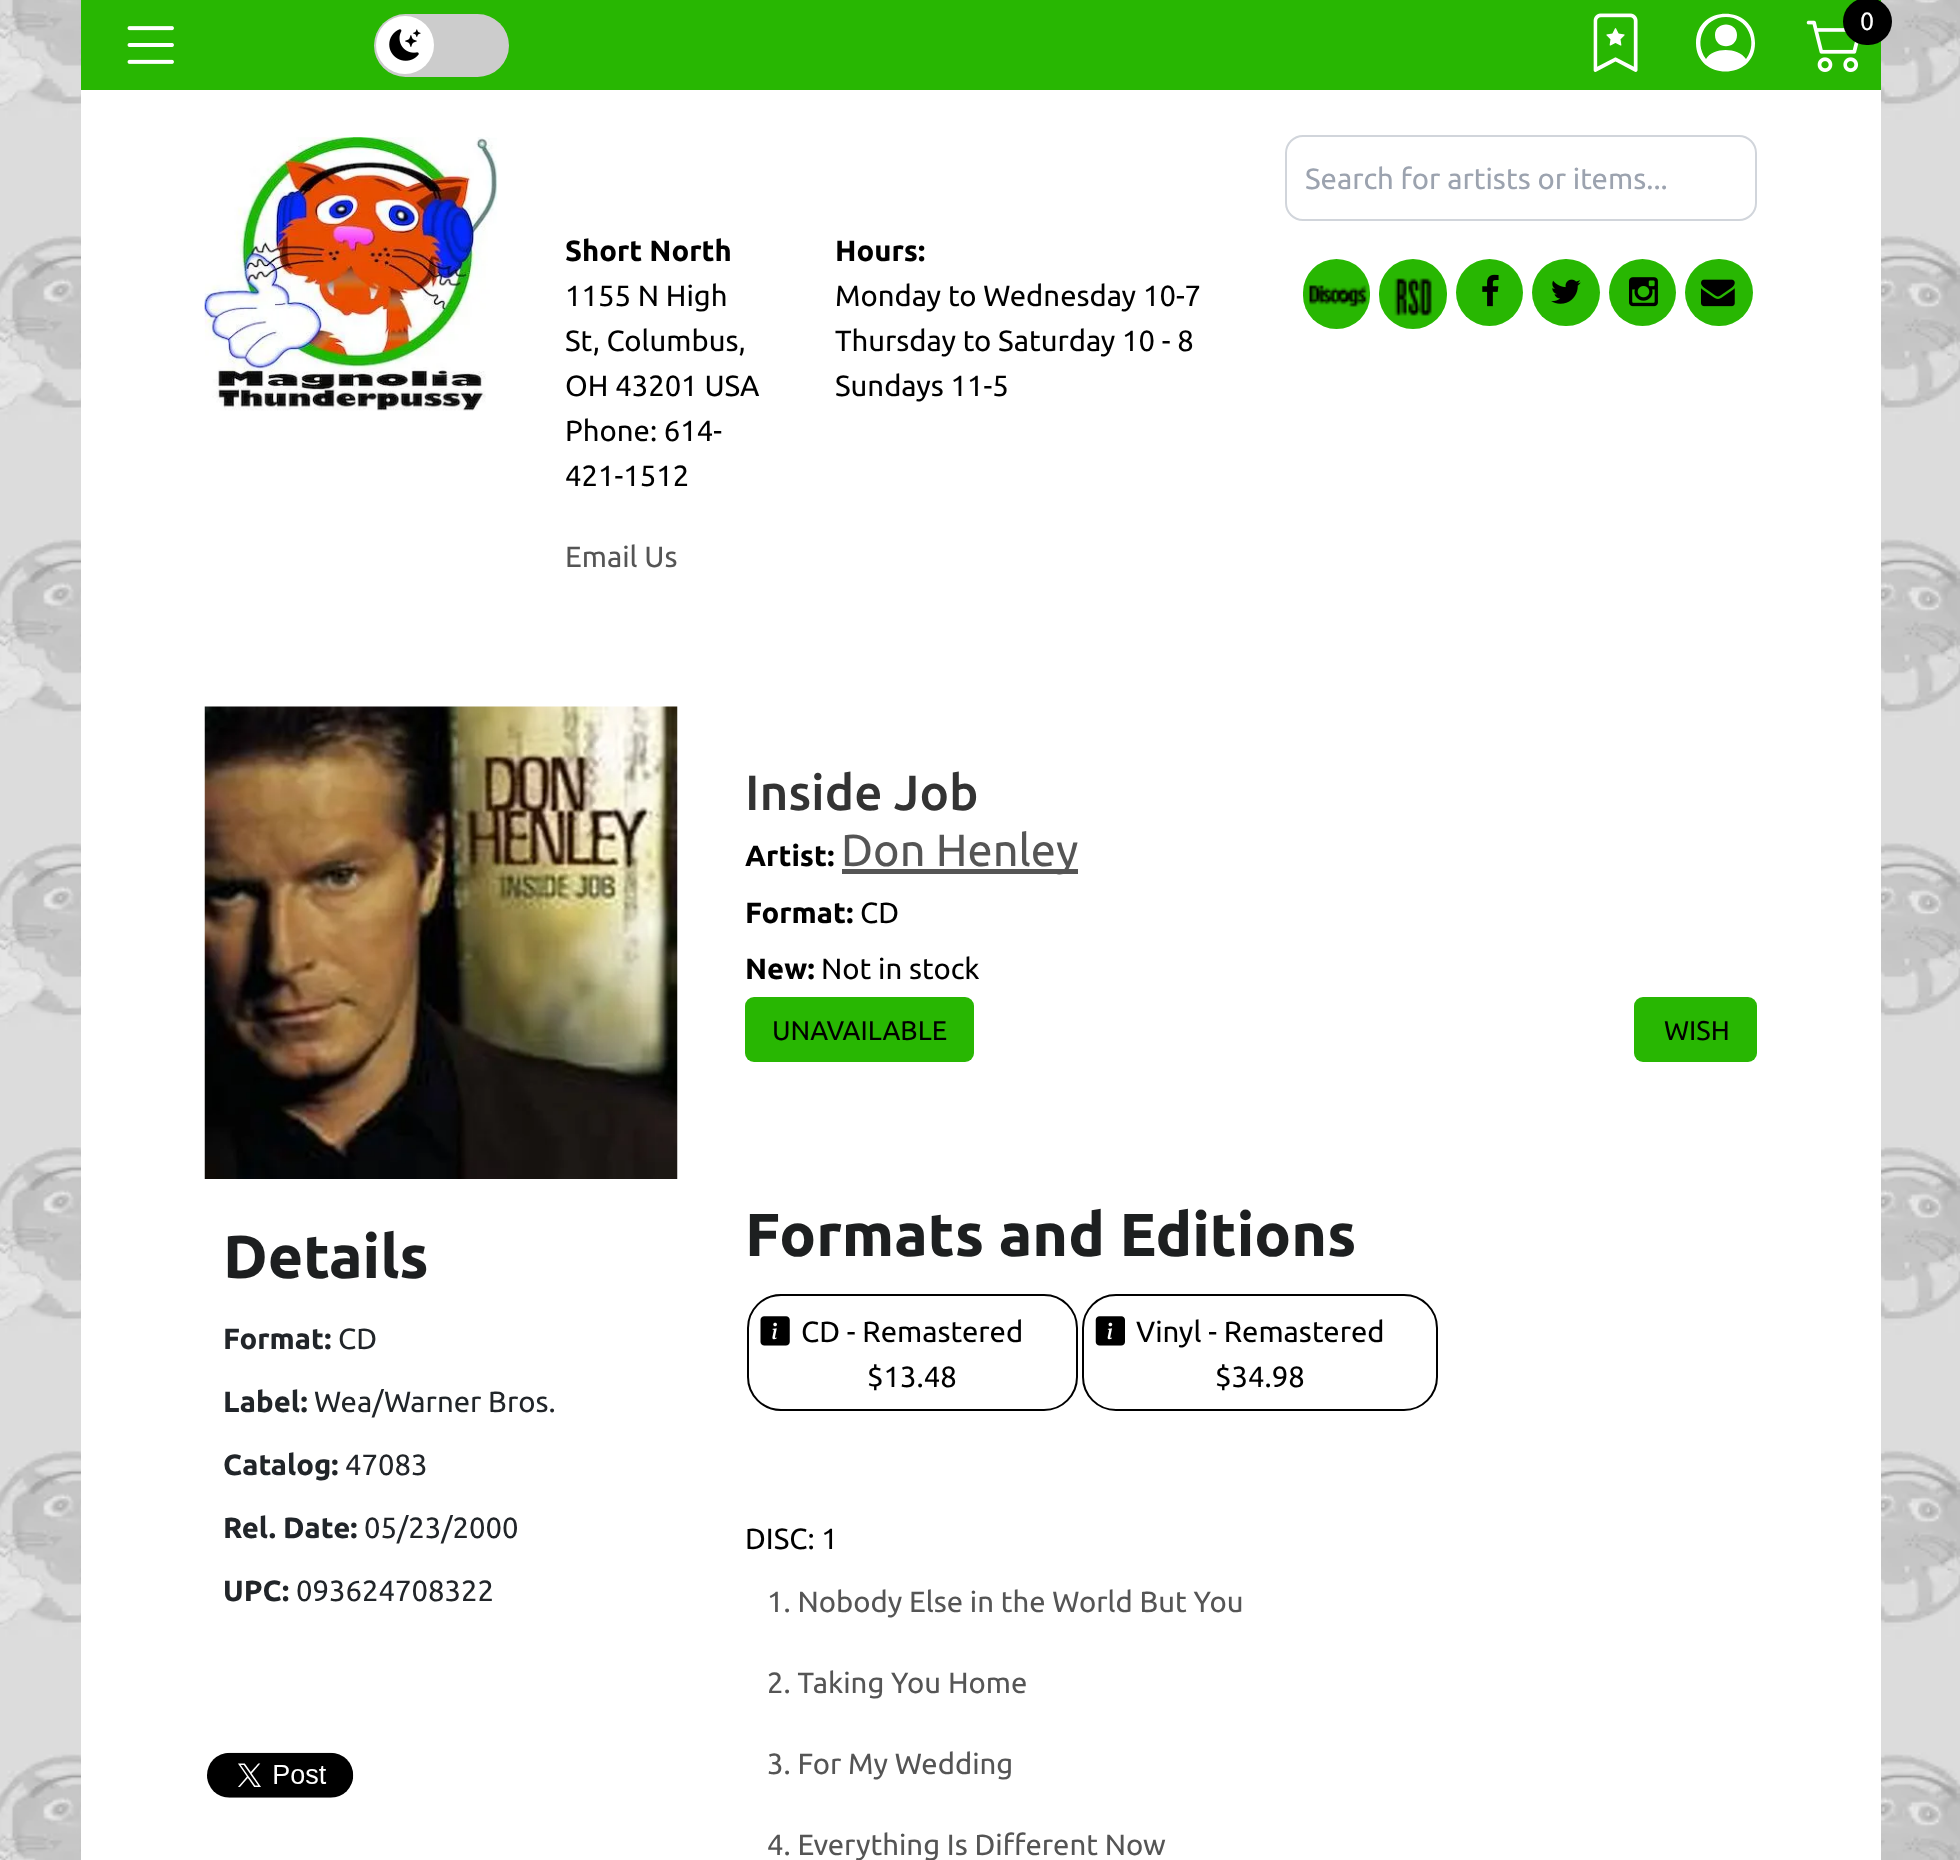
<svg xmlns="http://www.w3.org/2000/svg" width="1960" height="1860">
<style>
.a{font:25px Ubuntu;fill:#fff}
.b{font:29.25px Ubuntu;fill:#9ca3af}
.c{font:bold 29.25px Ubuntu;fill:#000}
.d{font:29.25px Ubuntu;fill:#000}
.e{font:29.25px Ubuntu;fill:#555}
.f{font:bold 60.75px Ubuntu;fill:#1d1f20}
.g{font:bold 29.25px Ubuntu;fill:#212529}
.h{font:29.25px Ubuntu;fill:#212529}
.i{font:500 49.5px Ubuntu;fill:#333}
.j{font:45px Ubuntu;fill:#555}
.k{font:27px Ubuntu;fill:#000}
</style>
<rect width="100%" height="100%" fill="#fff"/>
<image href="1.png" x="0" y="0" width="1960" height="1860"/>
<path fill="#fff" d="M81 90h1800v1770H81z"/>
<path fill="#28b702" d="M81 0h1800v90H81z"/>
<image href="2.png" x="127" y="26" width="47" height="38"/>
<rect fill="#ccc" x="374" y="14" width="135" height="63" rx="31.5"/>
<circle fill="#fff" cx="405" cy="45" r="29"/>
<image href="3.png" x="389" y="29" width="32" height="32"/>
<image href="4.png" x="1593" y="13" width="45" height="59"/>
<path fill="#fff" d="M1737 35c0 15-22 15-22 0c0-14 22-14 22 0zm-41 8c0-39 59-39 59 0c0 38-59 38-59 0zm30-26c-22 0-33 25-20 42c7-12 32-12 40 0c13-17 1-42-20-42z"/>
<image href="5.png" x="1806" y="20" width="53" height="52"/>
<rect fill="#000" x="1843" y="-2" width="49" height="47" rx="23.5"/>
<rect fill="none" stroke="#d1d5db" stroke-width="2" x="1286" y="136" width="470" height="84" rx="17"/>
<rect fill="#28b702" x="1303" y="259" width="67" height="70" rx="33.5"/>
<image href="6.png" x="1309" y="285" width="58" height="22"/>
<rect fill="#28b702" x="1379" y="259" width="68" height="70" rx="34"/>
<image href="7.png" x="1394" y="278" width="38" height="38"/>
<circle fill="#28b702" cx="1489.5" cy="292.5" r="33.5"/>
<image href="8.png" x="1482" y="274" width="17" height="33"/>
<rect fill="#28b702" x="1532" y="259" width="68" height="67" rx="33.5"/>
<image href="9.png" x="1551" y="279" width="30" height="25"/>
<circle fill="#28b702" cx="1642.5" cy="292.5" r="33.5"/>
<image href="10.png" x="1629" y="277" width="29" height="30"/>
<rect fill="#28b702" x="1685" y="259" width="68" height="67" rx="33.5"/>
<image href="11.png" x="1701" y="279" width="34" height="28"/>
<image href="12.png" x="204" y="137" width="294" height="274"/>
<image href="13.png" x="204" y="706" width="474" height="473"/>
<image href="14.png" x="207" y="1752" width="147" height="46"/>
<path fill="#555" d="M842 869h236v5H842z"/>
<rect fill="#28b702" x="745" y="997" width="229" height="65" rx="9"/>
<rect fill="#28b702" x="1634" y="997" width="123" height="65" rx="9"/>
<rect fill="none" stroke="#000" stroke-width="2" x="748" y="1295" width="329" height="115" rx="33"/>
<image href="15.png" x="760" y="1316" width="30" height="30"/>
<rect fill="none" stroke="#000" stroke-width="2" x="1083" y="1295" width="354" height="115" rx="33"/>
<image href="16.png" x="1095" y="1316" width="30" height="30"/>
<text class="a" x="1860" y="30">0</text>
<text class="b" x="1305" y="189">Search for artists or items...</text>
<text class="c" x="565" y="261">Short North</text>
<text class="d" x="565" y="306">1155 N High</text>
<text class="d" x="565" y="351">St, Columbus,</text>
<text class="d" x="565" y="396">OH 43201 USA</text>
<text class="d" x="565" y="441">Phone: 614-</text>
<text class="d" x="565" y="486">421-1512</text>
<text class="e" x="565" y="567">Email Us</text>
<text class="c" x="835" y="261">Hours:</text>
<text class="d" x="835" y="306">Monday to Wednesday 10-7</text>
<text class="d" x="835" y="351">Thursday to Saturday 10 - 8</text>
<text class="d" x="835" y="396">Sundays 11-5</text>
<text class="f" x="223" y="1278">Details</text>
<text class="g" x="223" y="1349">Format:</text>
<text class="h" x="338" y="1349">CD</text>
<text class="g" x="223" y="1412">Label:</text>
<text class="h" x="314" y="1412">Wea/Warner Bros.</text>
<text class="g" x="223" y="1475">Catalog:</text>
<text class="h" x="345" y="1475">47083</text>
<text class="g" x="223" y="1538">Rel. Date:</text>
<text class="h" x="364" y="1538">05/23/2000</text>
<text class="g" x="223" y="1601">UPC:</text>
<text class="h" x="296" y="1601">093624708322</text>
<text class="i" x="745" y="810">Inside Job</text>
<text class="c" x="745" y="866">Artist:</text>
<text class="j" x="841" y="866">Don Henley</text>
<text class="c" x="745" y="923">Format:</text>
<text class="d" x="860" y="923">CD</text>
<text class="c" x="745" y="979">New:</text>
<text class="d" x="821" y="979">Not in stock</text>
<text class="k" x="772" y="1040">UNAVAILABLE</text>
<text class="k" x="1664" y="1040">WISH</text>
<text class="f" x="745" y="1256">Formats and Editions</text>
<text class="d" x="801" y="1342">CD - Remastered</text>
<text class="d" x="867" y="1387">$13.48</text>
<text class="d" x="1136" y="1342">Vinyl - Remastered</text>
<text class="d" x="1215" y="1387">$34.98</text>
<text class="d" x="745" y="1549">DISC: 1</text>
<text class="e" x="767" y="1612">1. Nobody Else in the World But You</text>
<text class="e" x="767" y="1693">2. Taking You Home</text>
<text class="e" x="767" y="1774">3. For My Wedding</text>
<text class="e" x="767" y="1855">4. Everything Is Different Now</text>
</svg>
